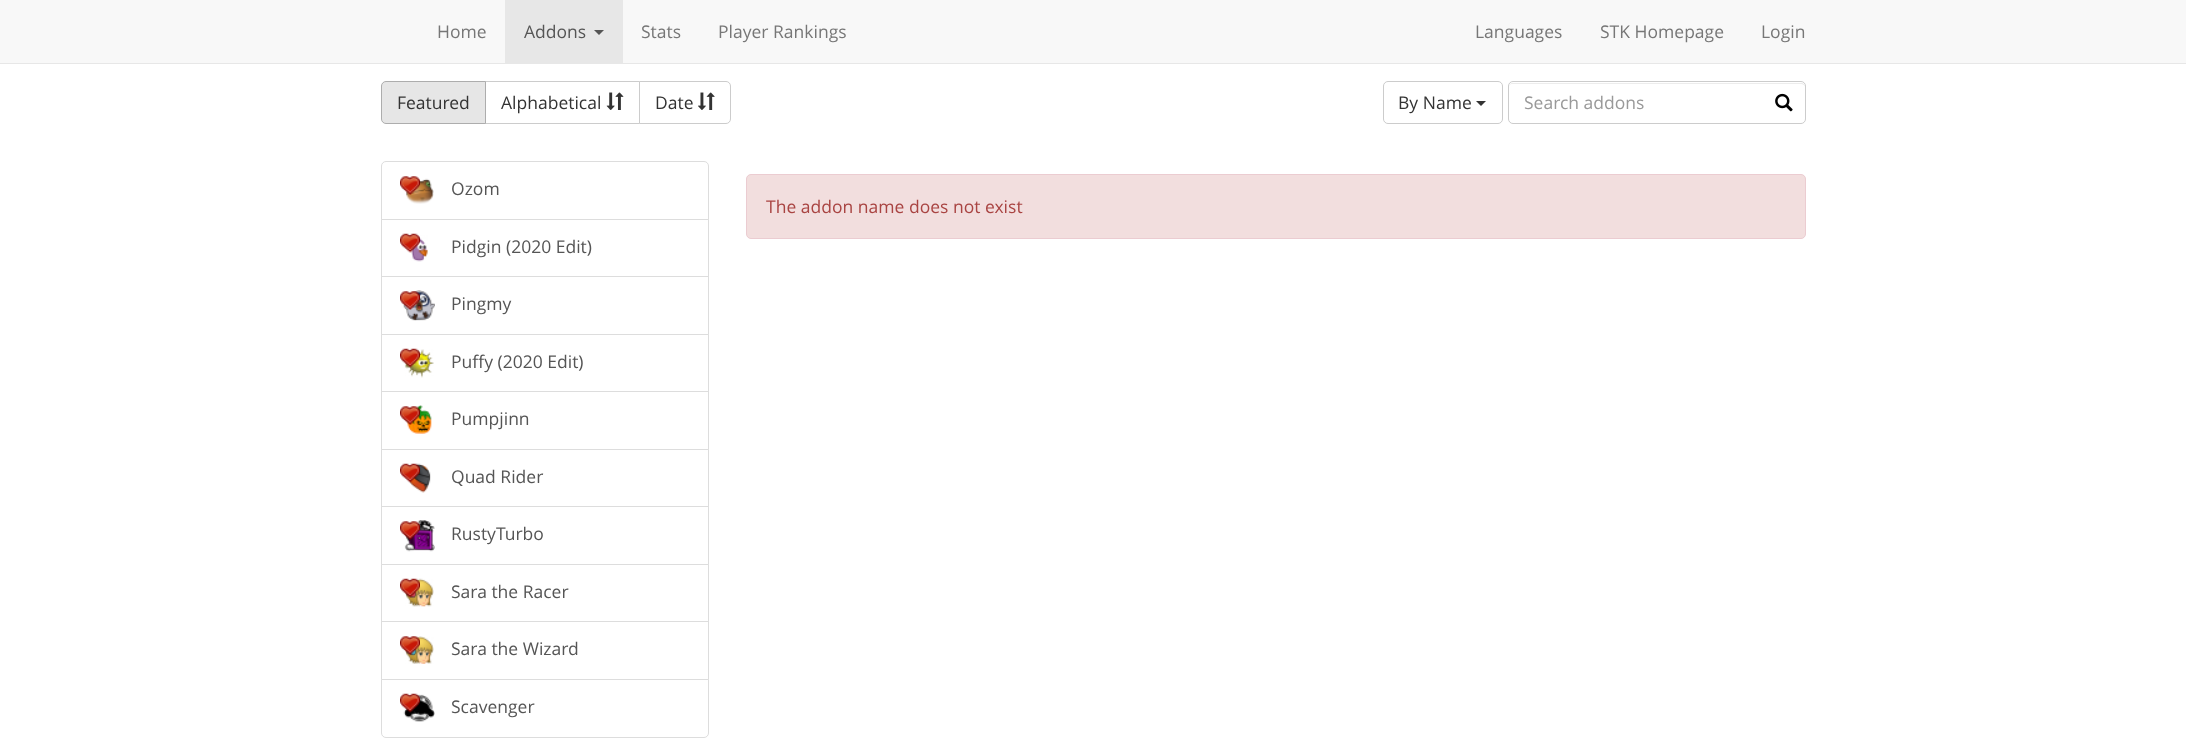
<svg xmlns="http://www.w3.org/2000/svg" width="2186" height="749">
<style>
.a{font:17.5px Open Sans;fill:#777}
.b{font:17.5px Open Sans;fill:#555}
.c{font:17.5px Open Sans;fill:#333}
.d{font:17.5px Open Sans;fill:#999}
.e{font:17.5px Open Sans;fill:#a94442}
</style>
<rect width="100%" height="100%" fill="#fff"/>
<path fill="#f8f8f8" d="M0 0h2186v63H0z"/>
<path fill="#e7e7e7" d="M0 63h2186v1H0z"/>
<path fill="#e7e7e7" d="M505 0h118v63H505z"/>
<path fill="#555" d="M594 30h10l-5 5z"/>
<path fill="none" stroke="#ccc" d="M485.5 81.5h154v42H485.5z"/>
<path fill="#e6e6e6" stroke="#adadad" d="M386 81.5h99.5v42h-99.5c-2.5 0-4.5-2-4.5-4.5v-33c0-2.5 2-4.5 4.5-4.5z"/>
<image href="1.png" x="606" y="92" width="18" height="18"/>
<path fill="#fff" stroke="#ccc" d="M639.5 81.5h86.5c2.5 0 4.5 2 4.5 4.5v33c0 2.5-2 4.5-4.5 4.5h-86.5z"/>
<image href="2.png" x="698" y="92" width="17" height="18"/>
<rect fill="none" stroke="#ccc" x="1383.5" y="81.5" width="119" height="42" rx="4.5"/>
<path fill="#333" d="M1476 101h10l-5 5z"/>
<path fill="#ececec" d="M1512 84h289c2 0 4 1 4 4c0-3-1-5-4-5h-288c-3 0-4 2-4 5c0-3 1-4 3-4z"/>
<rect fill="none" stroke="#ccc" x="1508.5" y="81.5" width="297" height="42" rx="4.5"/>
<image href="3.png" x="1775" y="93" width="18" height="19"/>
<path fill="none" stroke="#ddd" d="M386 161.5h318c2.5 0 4.5 2 4.5 4.5v53.5h-327v-53.5c0-2.5 2-4.5 4.5-4.5z"/>
<image href="5.png" x="406" y="178" width="28" height="26"/>
<image href="4.png" x="400" y="176" width="20" height="19"/>
<path fill="none" stroke="#ddd" d="M381.5 219.5h327v58H381.5z"/>
<image href="7.png" x="411" y="235" width="17" height="27"/>
<image href="6.png" x="400" y="233" width="20" height="20"/>
<path fill="#fff" d="M382 277h326v1H382z"/>
<path fill="none" stroke="#ddd" d="M381.5 276.5h327v58H381.5z"/>
<image href="8.png" x="403" y="290" width="32" height="31"/>
<image href="9.png" x="400" y="291" width="20" height="19"/>
<path fill="none" stroke="#ddd" d="M381.5 334.5h327v58H381.5z"/>
<image href="11.png" x="404" y="349" width="30" height="29"/>
<image href="10.png" x="400" y="348" width="20" height="20"/>
<path fill="#fff" d="M382 392h326v1H382z"/>
<path fill="none" stroke="#ddd" d="M381.5 391.5h327v58H381.5z"/>
<image href="12.png" x="406" y="405" width="26" height="29"/>
<image href="13.png" x="400" y="406" width="20" height="19"/>
<path fill="none" stroke="#ddd" d="M381.5 449.5h327v58H381.5z"/>
<image href="15.png" x="408" y="463" width="23" height="30"/>
<image href="14.png" x="400" y="463" width="20" height="20"/>
<path fill="#fff" d="M382 507h326v1H382z"/>
<path fill="none" stroke="#ddd" d="M381.5 506.5h327v58H381.5z"/>
<image href="16.png" x="403" y="520" width="32" height="32"/>
<image href="17.png" x="400" y="521" width="20" height="19"/>
<path fill="none" stroke="#ddd" d="M381.5 564.5h327v58H381.5z"/>
<image href="19.png" x="405" y="578" width="29" height="29"/>
<image href="18.png" x="400" y="578" width="20" height="20"/>
<path fill="#fff" d="M382 622h326v1H382z"/>
<path fill="none" stroke="#ddd" d="M381.5 621.5h327v58H381.5z"/>
<image href="21.png" x="405" y="636" width="29" height="28"/>
<image href="20.png" x="400" y="636" width="20" height="19"/>
<path fill="#fff" stroke="#ddd" d="M381.5 679.5h327v53.5c0 2.5-2 4.5-4.5 4.5h-318c-2.5 0-4.5-2-4.5-4.5z"/>
<image href="23.png" x="403" y="694" width="32" height="28"/>
<image href="22.png" x="400" y="693" width="20" height="20"/>
<rect fill="#f2dede" stroke="#ebccd1" x="746.5" y="174.5" width="1059" height="64" rx="4.5"/>
<text class="a" x="437" y="38">Home</text>
<text class="b" x="524" y="38">Addons</text>
<text class="a" x="641" y="38">Stats</text>
<text class="a" x="718" y="38">Player Rankings</text>
<text class="a" x="1475" y="38">Languages</text>
<text class="a" x="1600" y="38">STK Homepage</text>
<text class="a" x="1761" y="38">Login</text>
<text class="c" x="397" y="109">Featured</text>
<text class="c" x="501" y="109">Alphabetical</text>
<text class="c" x="655" y="109">Date</text>
<text class="c" x="1398" y="109">By Name</text>
<text class="d" x="1524" y="109">Search addons</text>
<text class="b" x="451" y="195">Ozom</text>
<text class="b" x="451" y="253">Pidgin (2020 Edit)</text>
<text class="b" x="451" y="310">Pingmy</text>
<text class="b" x="451" y="368">Puffy (2020 Edit)</text>
<text class="b" x="451" y="425">Pumpjinn</text>
<text class="b" x="451" y="483">Quad Rider</text>
<text class="b" x="451" y="540">RustyTurbo</text>
<text class="b" x="451" y="598">Sara the Racer</text>
<text class="b" x="451" y="655">Sara the Wizard</text>
<text class="b" x="451" y="713">Scavenger</text>
<text class="e" x="766" y="213">The addon name does not exist</text>
</svg>
